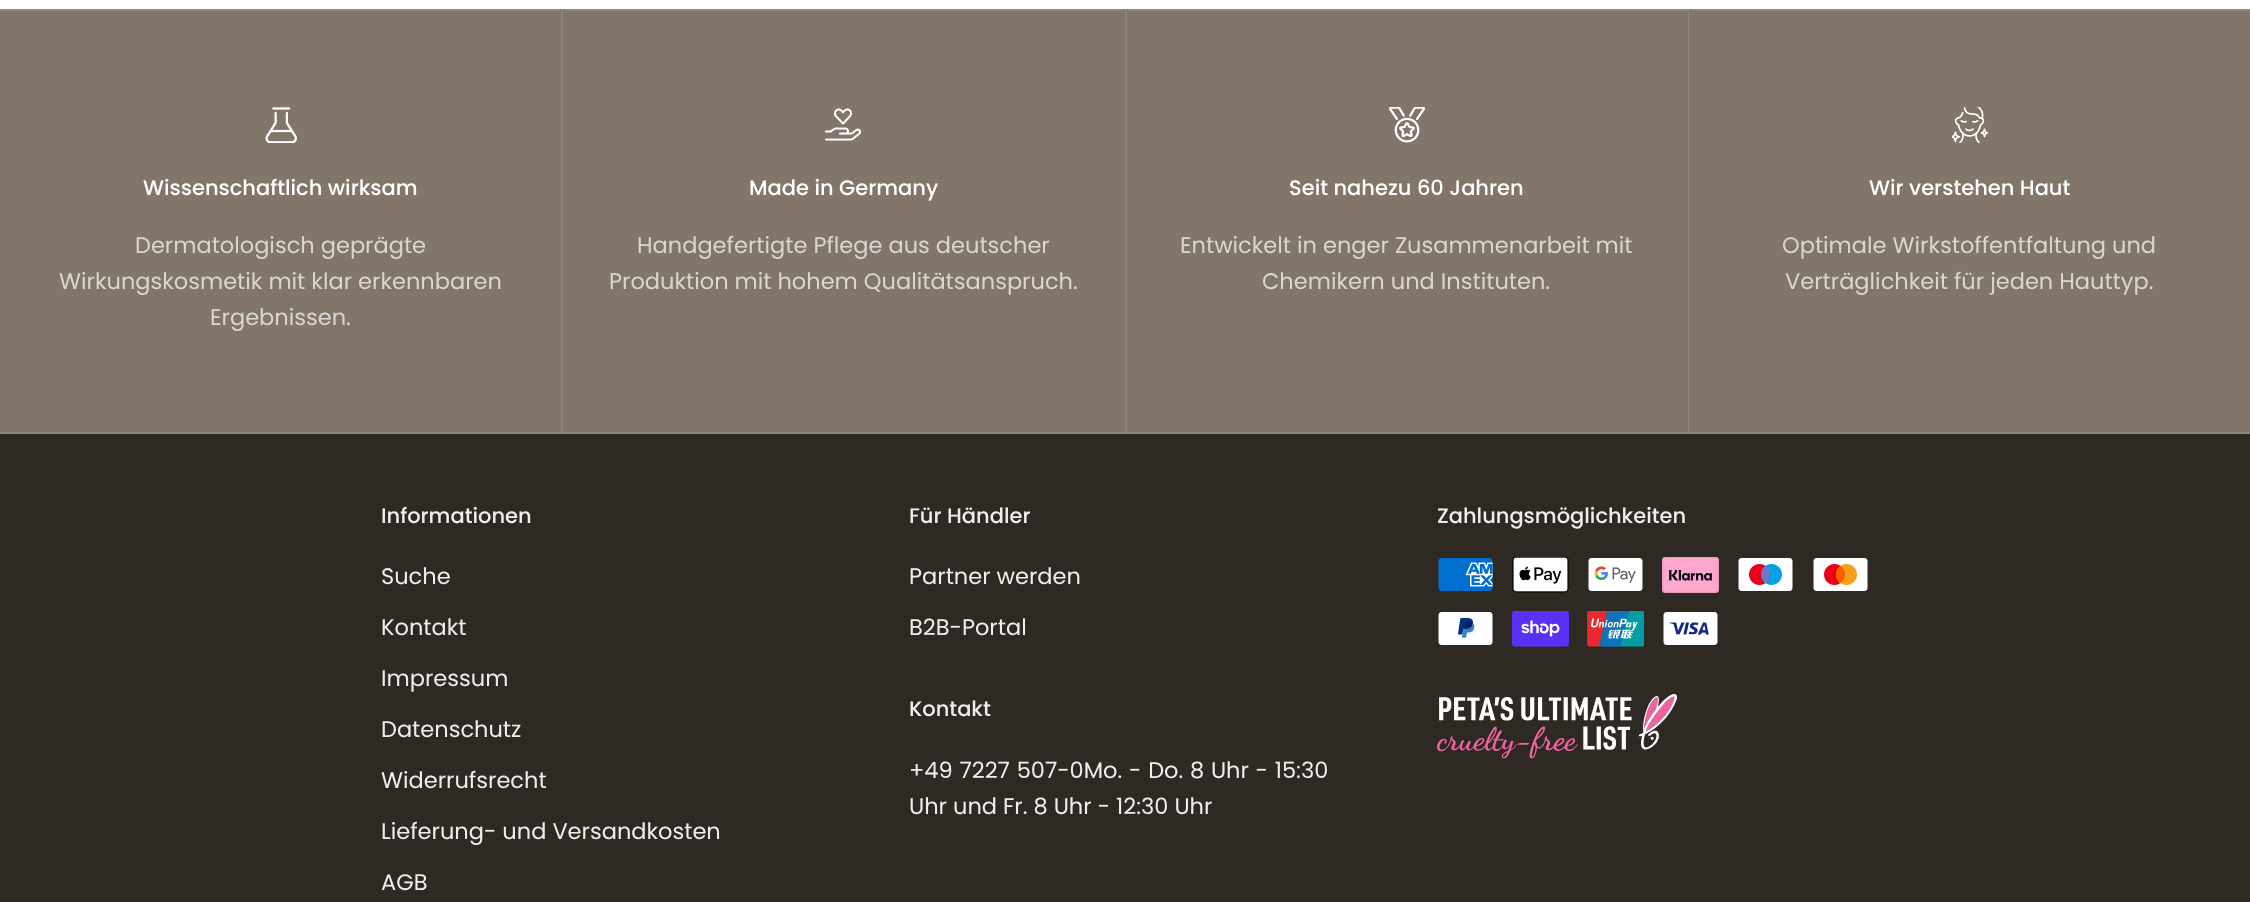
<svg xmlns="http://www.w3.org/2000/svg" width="2250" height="902">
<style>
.a{font:500 21px Poppins;fill:#fff}
.b{font:22.5px Poppins;fill:#d9d6d2}
.c{font:500 21px Poppins;fill:#efeeed}
.d{font:22.5px Poppins;fill:#efeeed}
</style>
<rect width="100%" height="100%" fill="#fff"/>
<path fill="#817669" d="M0 11h2250v421H0z"/>
<path fill="#8e8478" d="M0 9h2250v2H0z"/>
<path fill="#8e8478" d="M0 432h2250v2H0z"/>
<path fill="#8e8478" d="M561 11h2v421H561z"/>
<image href="1.png" x="265" y="107" width="32" height="36"/>
<path fill="#8e8478" d="M1125 11h2v421H1125z"/>
<image href="2.png" x="825" y="108" width="36" height="33"/>
<path fill="#8e8478" d="M1688 11h1v421H1688z"/>
<image href="3.png" x="1389" y="107" width="36" height="36"/>
<image href="4.png" x="1952" y="107" width="36" height="36"/>
<path fill="#2f2924" d="M0 434h2250v468H0z"/>
<image href="5.png" x="1438" y="558" width="55" height="33"/>
<image href="6.png" x="1512" y="557" width="57" height="36"/>
<image href="7.png" x="1588" y="558" width="55" height="33"/>
<image href="8.png" x="1662" y="557" width="57" height="36"/>
<image href="9.png" x="1738" y="558" width="55" height="33"/>
<image href="10.png" x="1813" y="558" width="55" height="33"/>
<image href="11.png" x="1438" y="612" width="55" height="33"/>
<image href="12.png" x="1512" y="611" width="57" height="36"/>
<image href="13.png" x="1587" y="611" width="57" height="36"/>
<image href="14.png" x="1663" y="612" width="55" height="33"/>
<image href="15.png" x="1437" y="694" width="240" height="65"/>
<text class="a" x="143" y="195">Wissenschaftlich wirksam</text>
<text class="b" x="135" y="253">Dermatologisch geprägte</text>
<text class="b" x="59" y="289">Wirkungskosmetik mit klar erkennbaren</text>
<text class="b" x="210" y="325">Ergebnissen.</text>
<text class="a" x="749" y="195">Made in Germany</text>
<text class="b" x="637" y="253">Handgefertigte Pflege aus deutscher</text>
<text class="b" x="609" y="289">Produktion mit hohem Qualitätsanspruch.</text>
<text class="a" x="1289" y="195">Seit nahezu 60 Jahren</text>
<text class="b" x="1180" y="253">Entwickelt in enger Zusammenarbeit mit</text>
<text class="b" x="1262" y="289">Chemikern und Instituten.</text>
<text class="a" x="1869" y="195">Wir verstehen Haut</text>
<text class="b" x="1782" y="253">Optimale Wirkstoffentfaltung und</text>
<text class="b" x="1785" y="289">Verträglichkeit für jeden Hauttyp.</text>
<text class="c" x="381" y="523">Informationen</text>
<text class="d" x="381" y="584">Suche</text>
<text class="d" x="381" y="635">Kontakt</text>
<text class="d" x="381" y="686">Impressum</text>
<text class="d" x="381" y="737">Datenschutz</text>
<text class="d" x="381" y="788">Widerrufsrecht</text>
<text class="d" x="381" y="839">Lieferung- und Versandkosten</text>
<text class="d" x="381" y="890">AGB</text>
<text class="c" x="909" y="523">Für Händler</text>
<text class="d" x="909" y="584">Partner werden</text>
<text class="d" x="909" y="635">B2B-Portal</text>
<text class="c" x="909" y="716">Kontakt</text>
<text class="d" x="909" y="778" word-spacing="0.75">+49 7227 507-0Mo. - Do. 8 Uhr - 15:30</text>
<text class="d" x="909" y="814">Uhr und Fr. 8 Uhr - 12:30 Uhr</text>
<text class="c" x="1437" y="523">Zahlungsmöglichkeiten</text>
</svg>
